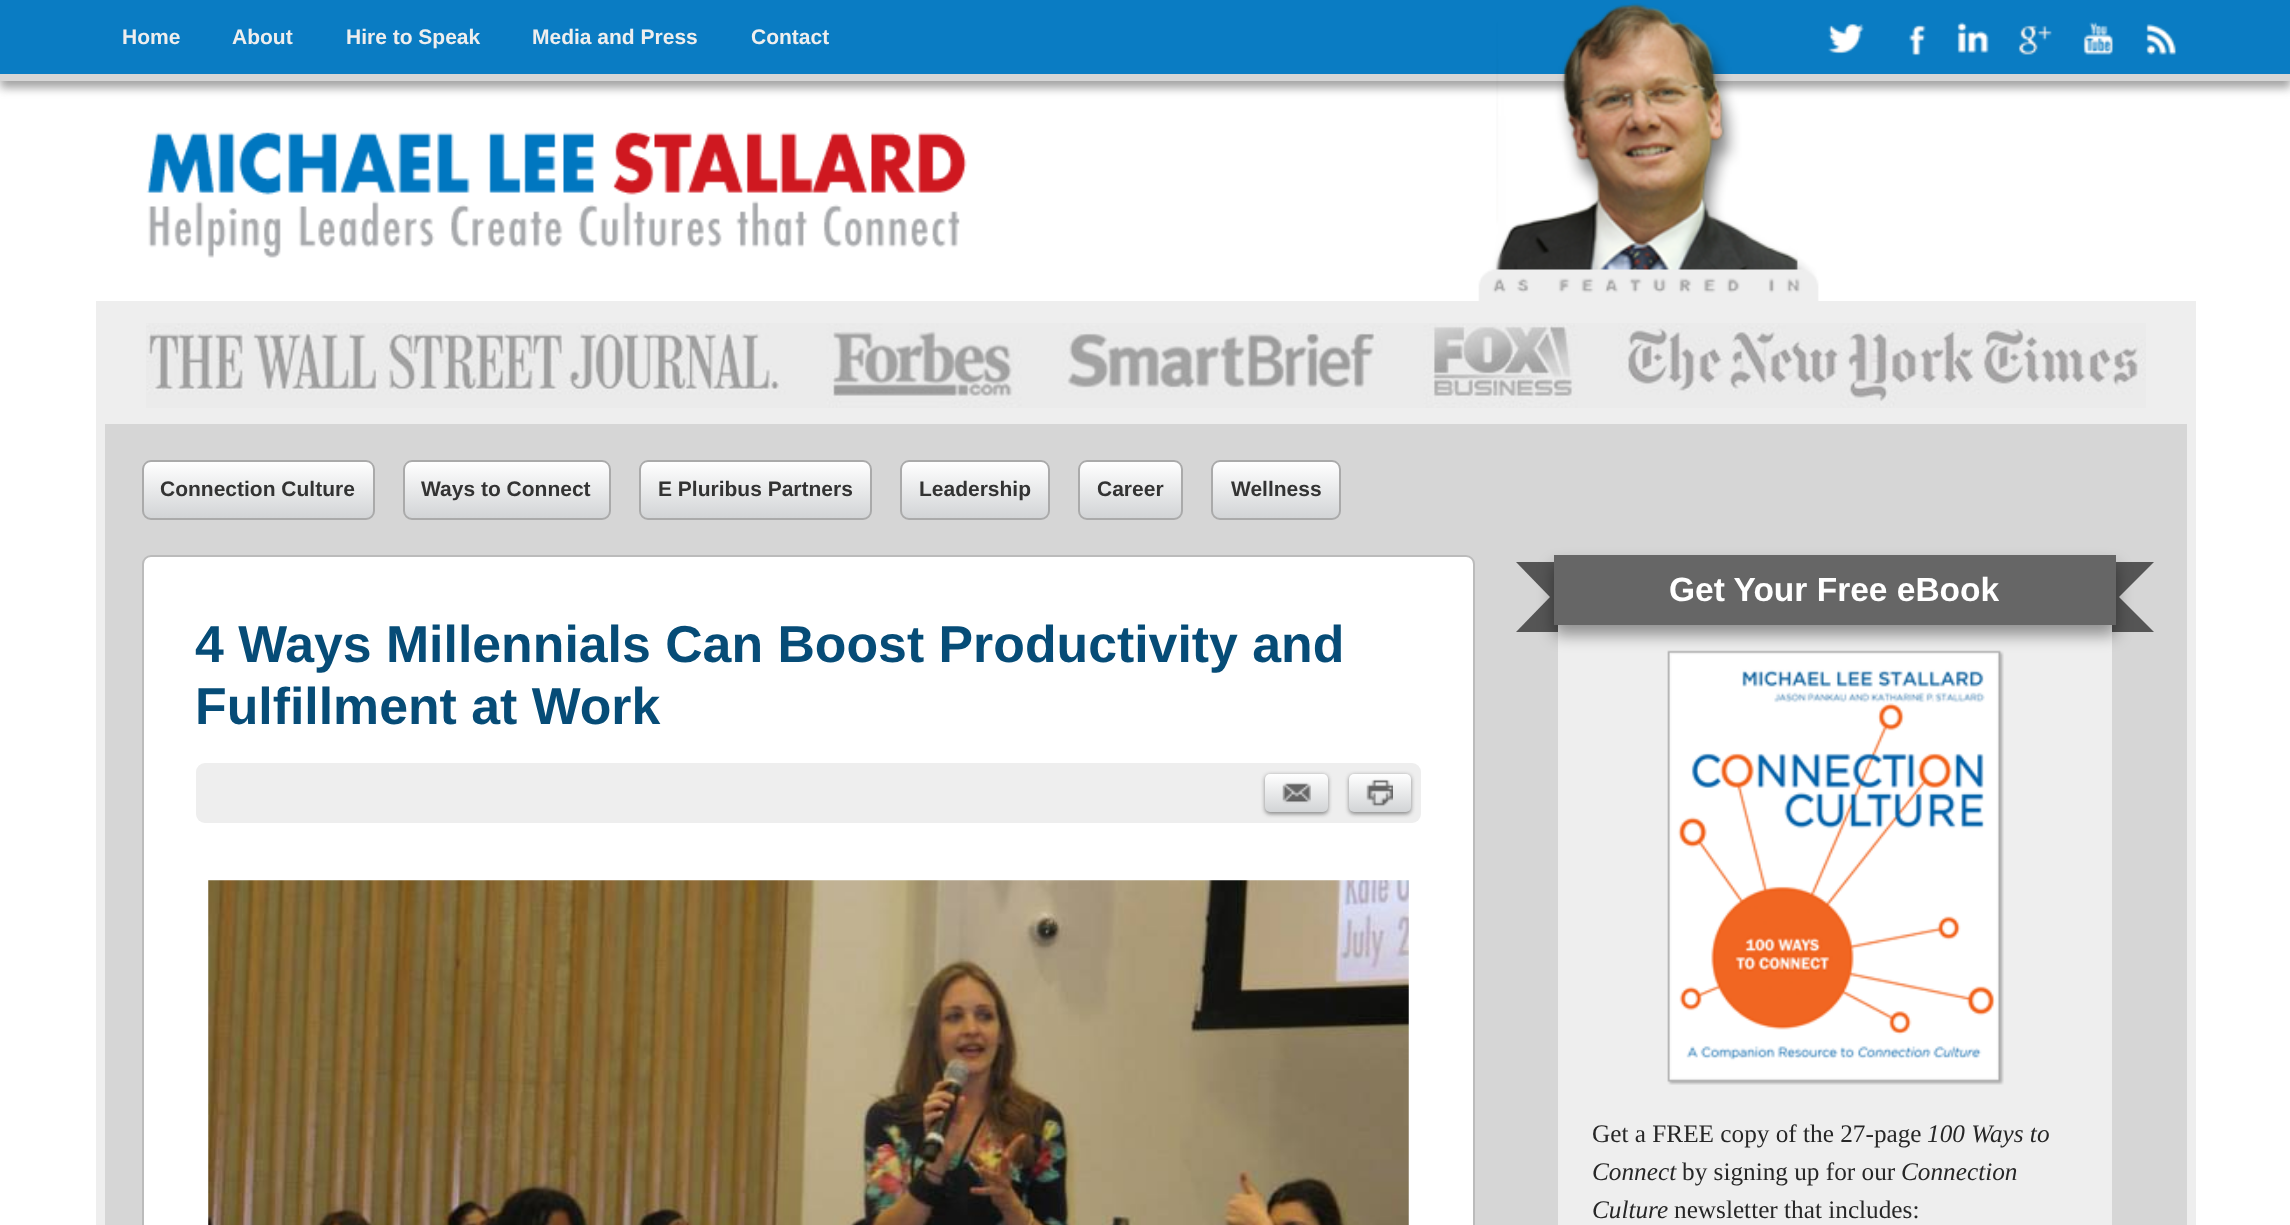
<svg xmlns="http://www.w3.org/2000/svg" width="2290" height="1225">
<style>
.a{font:bold 21px Liberation Sans;fill:#eee}
.b{font:bold 21px Liberation Sans;fill:#333}
.c{font:bold 51.8px Liberation Sans;fill:#064c77}
.d{font:bold 33.5px Liberation Sans;fill:#fff}
.e{font:25.25px Liberation Serif;fill:#272727}
.f{font:italic 25.25px Liberation Serif;fill:#272727}
</style>
<defs>
<clipPath id="clip1"><rect x="142" y="460" width="233" height="60" rx="9"/></clipPath>
<linearGradient id="g1" gradientUnits="userSpaceOnUse" x1="258" y1="462" x2="258" y2="518"><stop offset="0" stop-color="#fff"/><stop offset="1" stop-color="#d2d4d6"/></linearGradient>
<clipPath id="clip2"><rect x="403" y="460" width="208" height="60" rx="9"/></clipPath>
<linearGradient id="g2" gradientUnits="userSpaceOnUse" x1="507" y1="462" x2="507" y2="518"><stop offset="0" stop-color="#fff"/><stop offset="1" stop-color="#d2d4d6"/></linearGradient>
<clipPath id="clip3"><rect x="639" y="460" width="233" height="60" rx="9"/></clipPath>
<linearGradient id="g3" gradientUnits="userSpaceOnUse" x1="755" y1="462" x2="755" y2="518"><stop offset="0" stop-color="#fff"/><stop offset="1" stop-color="#d2d4d6"/></linearGradient>
<clipPath id="clip4"><rect x="900" y="460" width="150" height="60" rx="9"/></clipPath>
<linearGradient id="g4" gradientUnits="userSpaceOnUse" x1="975" y1="462" x2="975" y2="518"><stop offset="0" stop-color="#fff"/><stop offset="1" stop-color="#d2d4d6"/></linearGradient>
<clipPath id="clip5"><rect x="1078" y="460" width="105" height="60" rx="9"/></clipPath>
<linearGradient id="g5" gradientUnits="userSpaceOnUse" x1="1131" y1="462" x2="1131" y2="518"><stop offset="0" stop-color="#fff"/><stop offset="1" stop-color="#d2d4d6"/></linearGradient>
<clipPath id="clip6"><rect x="1211" y="460" width="130" height="60" rx="9"/></clipPath>
<linearGradient id="g6" gradientUnits="userSpaceOnUse" x1="1276" y1="462" x2="1276" y2="518"><stop offset="0" stop-color="#fff"/><stop offset="1" stop-color="#d2d4d6"/></linearGradient>
<linearGradient id="g7" gradientUnits="userSpaceOnUse" x1="1297" y1="774" x2="1297" y2="812"><stop offset="0" stop-color="#fff"/><stop offset="1" stop-color="#d2d4d6"/></linearGradient>
<linearGradient id="g8" gradientUnits="userSpaceOnUse" x1="1380" y1="774" x2="1380" y2="812"><stop offset="0" stop-color="#fff"/><stop offset="1" stop-color="#d2d4d6"/></linearGradient>
</defs>
<rect width="100%" height="100%" fill="#fff"/>
<path fill="#66666699" filter="blur(5px)" d="M0 7h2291v81H0z"/>
<path fill="#0a7cc3" d="M0 0h2290v74H0z"/>
<path fill="#d6d6d6" d="M0 74h2290v7H0z"/>
<image href="1.png" x="1828" y="23" width="36" height="31"/>
<image href="2.png" x="1909" y="24" width="17" height="32"/>
<image href="3.png" x="1957" y="22" width="32" height="31"/>
<image href="4.png" x="2018" y="24" width="34" height="31"/>
<image href="5.png" x="2083" y="22" width="31" height="33"/>
<image href="6.png" x="2146" y="24" width="31" height="31"/>
<image href="7.png" x="146" y="132" width="821" height="126"/>
<image href="8.png" x="1478" y="3" width="341" height="298"/>
<path fill="#eee" d="M96 301h2100v114H96z"/>
<image href="9.png" x="146" y="323" width="2000" height="85"/>
<path fill="#d6d6d6" stroke="#eee" stroke-width="9" d="M100.5 419.5h2091v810H100.5z"/>
<g clip-path="url(#clip1)">
<path fill="url(#g1)" d="M142 462h233v56H142z"/>
</g>
<rect fill="none" stroke="#aaa" stroke-width="2" x="143" y="461" width="231" height="58" rx="8"/>
<g clip-path="url(#clip2)">
<path fill="url(#g2)" d="M403 462h208v56H403z"/>
</g>
<rect fill="none" stroke="#aaa" stroke-width="2" x="404" y="461" width="206" height="58" rx="8"/>
<g clip-path="url(#clip3)">
<path fill="url(#g3)" d="M639 462h233v56H639z"/>
</g>
<rect fill="none" stroke="#aaa" stroke-width="2" x="640" y="461" width="231" height="58" rx="8"/>
<g clip-path="url(#clip4)">
<path fill="url(#g4)" d="M900 462h150v56H900z"/>
</g>
<rect fill="none" stroke="#aaa" stroke-width="2" x="901" y="461" width="148" height="58" rx="8"/>
<g clip-path="url(#clip5)">
<path fill="url(#g5)" d="M1078 462h105v56H1078z"/>
</g>
<rect fill="none" stroke="#aaa" stroke-width="2" x="1079" y="461" width="103" height="58" rx="8"/>
<g clip-path="url(#clip6)">
<path fill="url(#g6)" d="M1211 462h130v56H1211z"/>
</g>
<rect fill="none" stroke="#aaa" stroke-width="2" x="1212" y="461" width="128" height="58" rx="8"/>
<rect fill="#fff" stroke="#bbb" stroke-width="2" x="143" y="556" width="1331" height="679" rx="8"/>
<rect fill="#eee" x="196" y="763" width="1225" height="60" rx="9"/>
<rect fill="#888" filter="blur(2px)" x="1265" y="775" width="63" height="39" rx="5"/>
<rect fill="url(#g7)" x="1265" y="774" width="63" height="38" rx="5"/>
<image href="10.png" x="1282" y="782" width="29" height="22"/>
<rect fill="#888" filter="blur(2px)" x="1349" y="775" width="62" height="39" rx="5"/>
<rect fill="url(#g8)" x="1349" y="774" width="62" height="38" rx="5"/>
<image href="11.png" x="1366" y="779" width="27" height="28"/>
<image href="12.png" x="208" y="880" width="1201" height="345"/>
<path fill="#555" d="M1516 562h42v35h-8z"/>
<path fill="#555" d="M1558 632h-42l34-35h8z"/>
<path fill="#555" d="M2112 562h42l-35 35h-7z"/>
<path fill="#555" d="M2154 632h-42v-35h7z"/>
<path fill="#eee" d="M1558 625h554v600H1558z"/>
<image href="13.png" x="1667" y="650" width="337" height="435"/>
<path fill="#00000066" filter="blur(8px)" d="M1554 565h562v70H1554z"/>
<path fill="#666" d="M1554 555h562v70H1554z"/>
<text class="a" x="122" y="44">Home</text>
<text class="a" x="232" y="44">About</text>
<text class="a" x="346" y="44">Hire to Speak</text>
<text class="a" x="532" y="44">Media and Press</text>
<text class="a" x="751" y="44">Contact</text>
<text class="b" x="160" y="496">Connection Culture</text>
<text class="b" x="421" y="496">Ways to Connect</text>
<text class="b" x="658" y="496">E Pluribus Partners</text>
<text class="b" x="919" y="496">Leadership</text>
<text class="b" x="1097" y="496">Career</text>
<text class="b" x="1231" y="496">Wellness</text>
<text class="c" x="195" y="662">4 Ways Millennials Can Boost Productivity and</text>
<text class="c" x="195" y="724">Fulfillment at Work</text>
<text class="d" x="1669" y="601">Get Your Free eBook</text>
<text class="e" x="1592" y="1142">Get a FREE copy of the 27-page</text>
<text class="f" x="1927" y="1142">100 Ways to</text>
<text class="f" x="1592" y="1180">Connect</text>
<text class="e" x="1682" y="1180">by signing up for our</text>
<text class="f" x="1901" y="1180">Connection</text>
<text class="f" x="1592" y="1218">Culture</text>
<text class="e" x="1674" y="1218">newsletter that includes:</text>
</svg>
